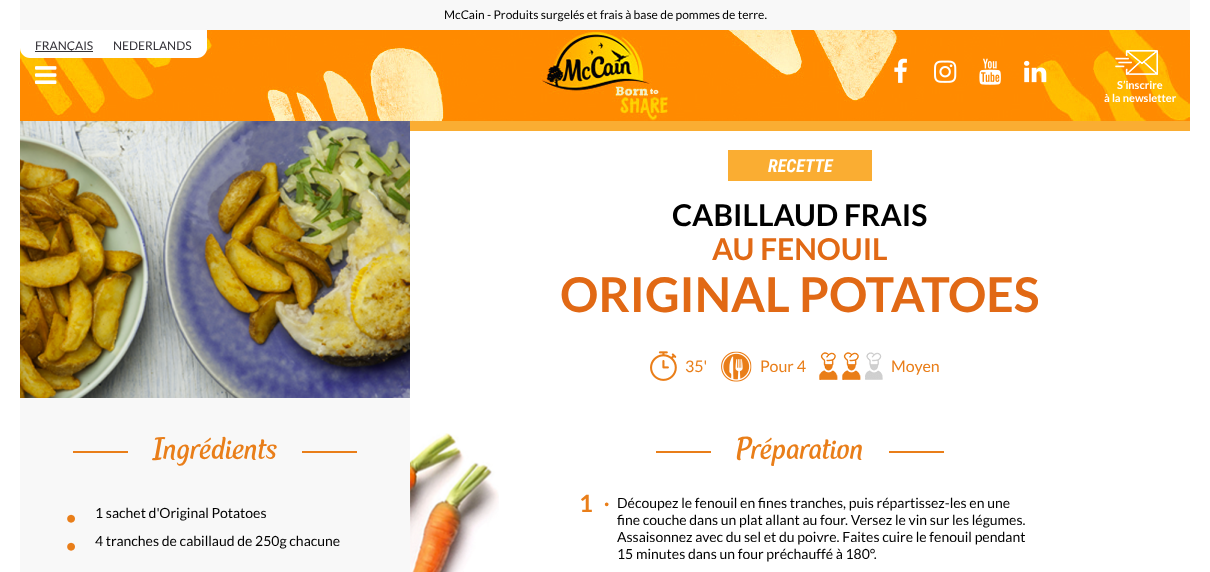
<svg xmlns="http://www.w3.org/2000/svg" width="1210" height="572">
<style>
.a{font:12px Lato;fill:#000}
.b{font:12px Lato;fill:#343238}
.c{font:bold 11px Lato;fill:#fff}
.d{font:italic bold 18px Roboto Condensed;fill:#fff}
.e{font:bold 30px Lato;fill:#000}
.f{font:bold 30px Lato;fill:#e16915}
.g{font:bold 48px Lato;fill:#e16915}
.h{font:16px Lato;fill:#e97e19}
.i{font:36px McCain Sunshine;fill:#e97e19}
.j{font:21px Lato;fill:#e97e19}
.k{font:14px Lato;fill:#000}
.l{font:bold 24px Lato;fill:#e97e19}
</style>
<rect width="100%" height="100%" fill="#fff"/>
<path fill="#f8f8f8" d="M20 0h1170v30H20z"/>
<image href="1.png" x="20" y="30" width="1170" height="91"/>
<path fill="#fff" d="M20 30h187v18c0 5.5-4.5 10-10 10h-167c-5.5 0-10-4.5-10-10z"/>
<path fill="#343238" d="M35 51h58v1H35z"/>
<image href="2.png" x="35" y="66" width="22" height="18"/>
<image href="3.png" x="894" y="58" width="13" height="25"/>
<image href="4.png" x="934" y="60" width="23" height="23"/>
<image href="5.png" x="979" y="58" width="22" height="27"/>
<image href="6.png" x="1024" y="60" width="23" height="23"/>
<image href="7.png" x="1115" y="50" width="43" height="25"/>
<path fill="#faad32" d="M410 121h780v10H410z"/>
<image href="8.png" x="20" y="121" width="390" height="277"/>
<path fill="#faad32" d="M728 150h144v31H728z"/>
<image href="9.png" x="650" y="351" width="27" height="30"/>
<image href="10.png" x="721" y="351" width="31" height="31"/>
<image href="11.png" x="819" y="352" width="64" height="28"/>
<path fill="#f8f8f8" d="M20 398h390v174H20z"/>
<path fill="#e97e19" d="M73 451h55v2H73z"/>
<path fill="#e97e19" d="M302 451h55v2H302z"/>
<image href="12.png" x="410" y="433" width="89" height="139"/>
<path fill="#e97e19" d="M656 451h55v2H656z"/>
<path fill="#e97e19" d="M889 451h55v2H889z"/>
<text class="a" x="444" y="19">McCain - Produits surgelés et frais à base de pommes de terre.</text>
<text class="b" x="35" y="50">FRANÇAIS</text>
<text class="b" x="113" y="50">NEDERLANDS</text>
<text class="c" x="1117" y="89">S’inscrire</text>
<text class="c" x="1104" y="102">à la newsletter</text>
<text class="d" x="768" y="172">RECETTE</text>
<text class="e" x="672" y="226">CABILLAUD FRAIS</text>
<text class="f" x="712" y="260">AU FENOUIL</text>
<text class="g" x="560" y="312">ORIGINAL POTATOES</text>
<text class="h" x="685" y="372">35'</text>
<text class="h" x="760" y="372">Pour 4</text>
<text class="h" x="891" y="372">Moyen</text>
<text class="i" x="153" y="459">Ingrédients</text>
<text class="j" x="65" y="525">•</text>
<text class="k" x="95" y="518">1 sachet d'Original Potatoes</text>
<text class="j" x="65" y="553">•</text>
<text class="k" x="95" y="546">4 tranches de cabillaud de 250g chacune</text>
<text class="i" x="736" y="459">Préparation</text>
<text class="l" x="579" y="512">1</text>
<text class="l" x="604" y="506">.</text>
<text class="k" x="617" y="508">Découpez le fenouil en fines tranches, puis répartissez-les en une</text>
<text class="k" x="617" y="525">fine couche dans un plat allant au four. Versez le vin sur les légumes.</text>
<text class="k" x="617" y="542">Assaisonnez avec du sel et du poivre. Faites cuire le fenouil pendant</text>
<text class="k" x="617" y="559">15 minutes dans un four préchauffé à 180°.</text>
</svg>
